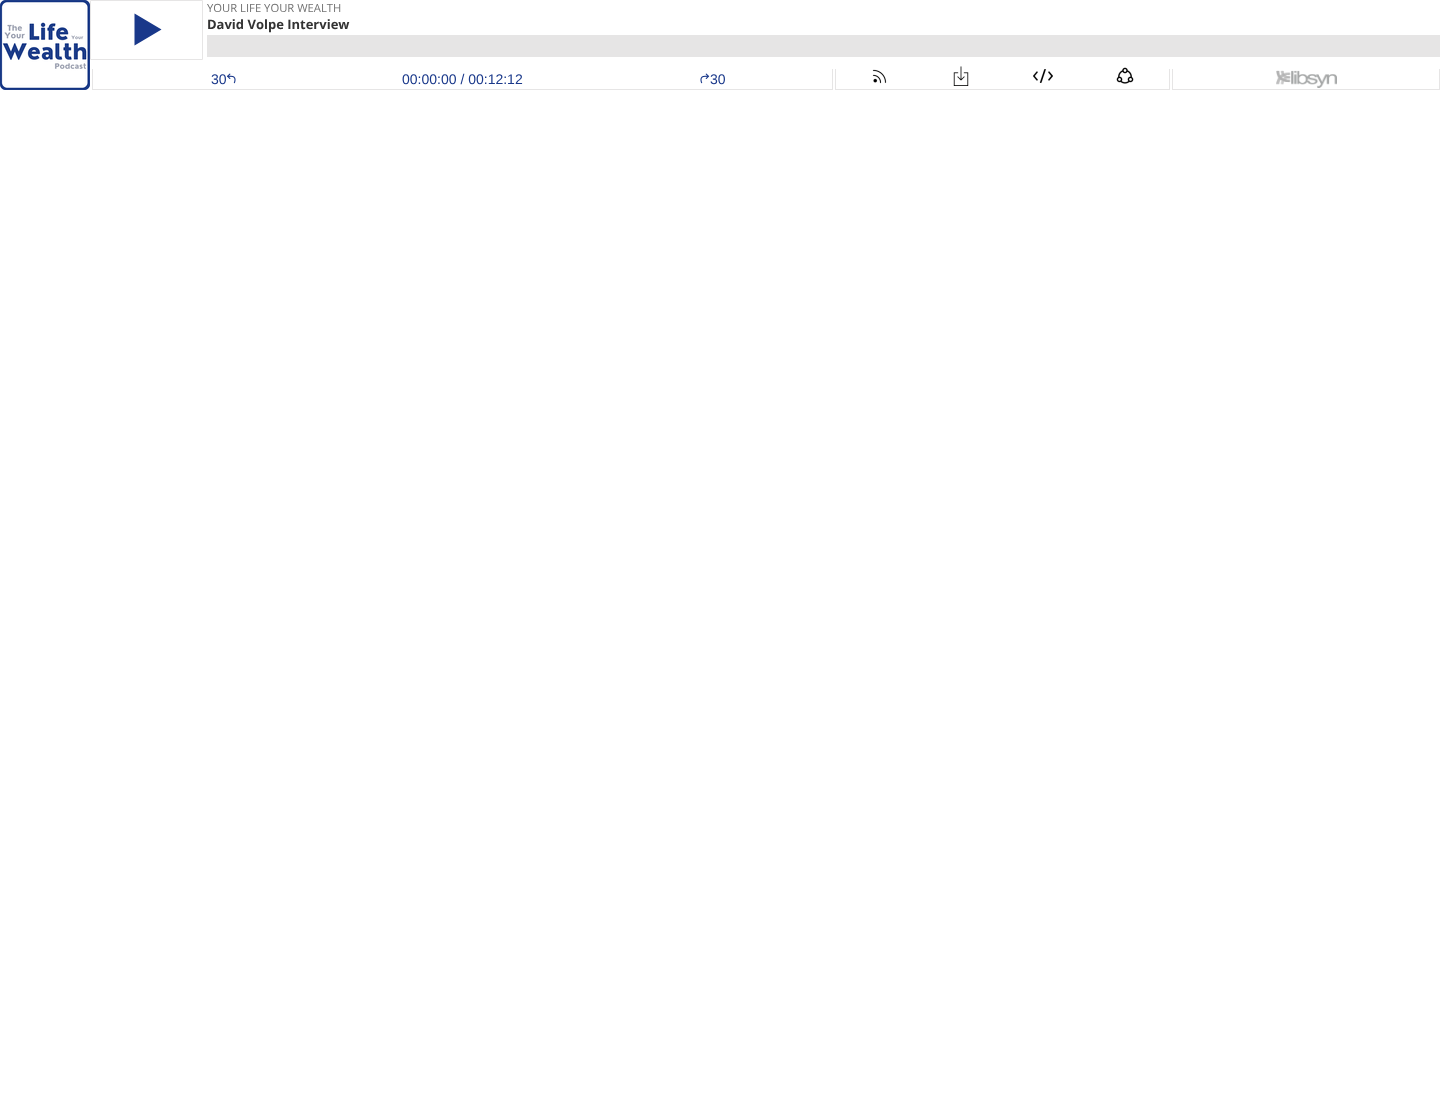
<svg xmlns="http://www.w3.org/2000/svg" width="1440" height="1111">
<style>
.a{font:11.25px Open Sans;fill:#727272}
.b{font:bold 13px Open Sans;fill:#333}
.c{font:14px Liberation Sans;fill:#19388a}
</style>
<rect width="100%" height="100%" fill="#fff"/>
<image href="1.png" x="0" y="0" width="90" height="90"/>
<path fill="none" stroke="#e6e5e5" d="M90.5 0.5h112v59H90.5z"/>
<path fill="#19388a" d="M134.5 13.5v32l27-16z"/>
<path fill="#e6e5e5" d="M207 35h1233v22H207z"/>
<path fill="#e6e5e5" d="M832 69h1v21H832z"/>
<path fill="#e6e5e5" d="M92 89h741v1H92z"/>
<path fill="#e6e5e5" d="M92 69h1v21H92z"/>
<image href="2.png" x="227" y="73" width="9" height="11"/>
<image href="3.png" x="700" y="73" width="10" height="11"/>
<path fill="#e6e5e5" d="M1169 69h1v21H1169z"/>
<path fill="#e6e5e5" d="M835 89h335v1H835z"/>
<path fill="#e6e5e5" d="M835 69h1v21H835z"/>
<image href="4.png" x="872" y="69" width="15" height="15"/>
<image href="5.png" x="953" y="66" width="16" height="20"/>
<image href="6.png" x="1033" y="69" width="20" height="14"/>
<image href="7.png" x="1116" y="67" width="18" height="17"/>
<image href="8.png" x="1276" y="70" width="61" height="18"/>
<path fill="#e6e5e5" d="M1439 69h1v21H1439z"/>
<path fill="#e6e5e5" d="M1172 89h268v1H1172z"/>
<path fill="#e6e5e5" d="M1172 69h1v21H1172z"/>
<text class="a" x="207" y="12">YOUR LIFE YOUR WEALTH</text>
<text class="b" x="207" y="29">David Volpe Interview</text>
<text class="c" x="211" y="84">30</text>
<text class="c" x="402" y="84">00:00:00 / 00:12:12</text>
<text class="c" x="710" y="84">30</text>
</svg>
